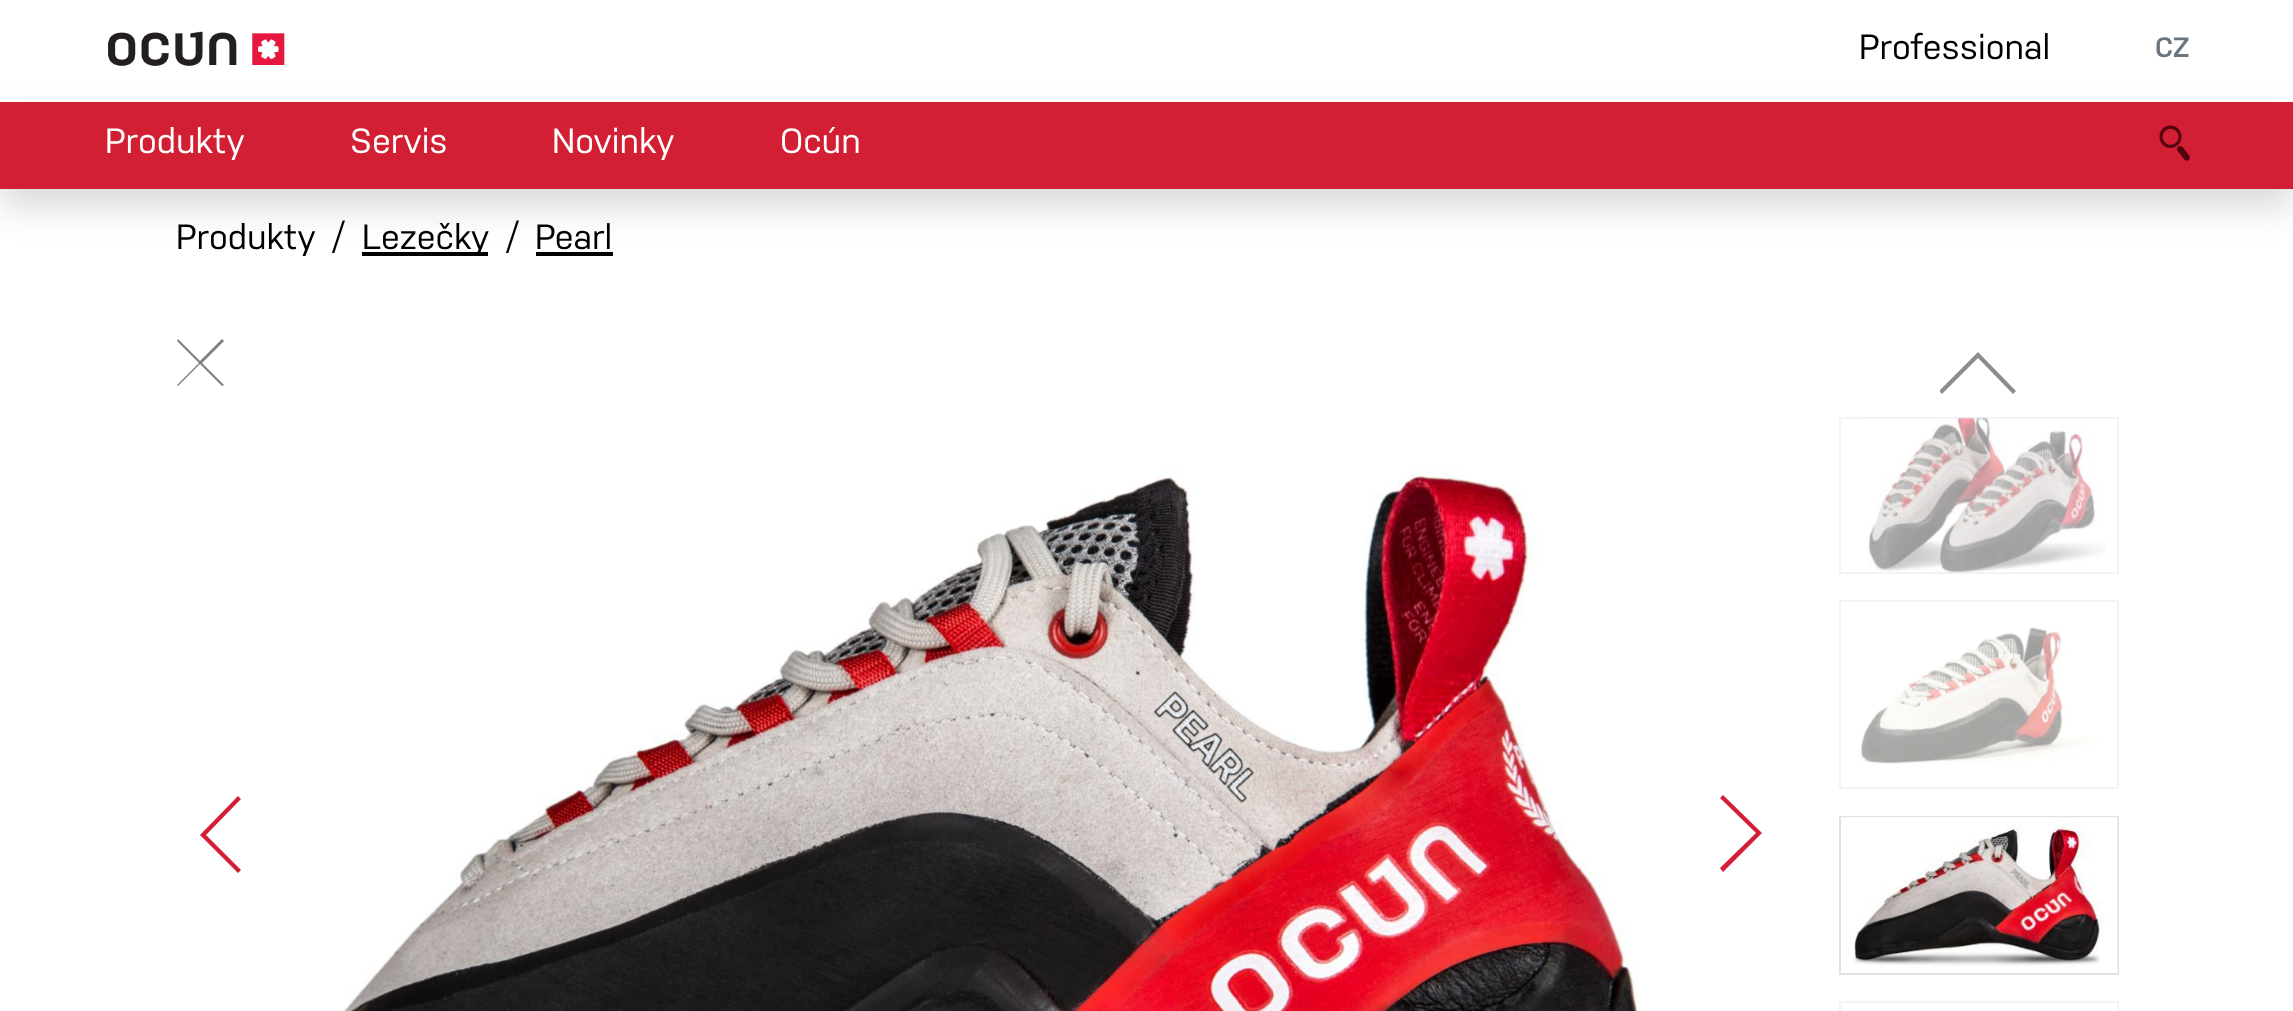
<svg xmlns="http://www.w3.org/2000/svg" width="2293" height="1011">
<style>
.a{font:500 35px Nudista;fill:#000}
.b{font:600 28px Nudista;fill:#6c757d}
.c{font:500 35px Nudista;fill:#fff}
</style>
<rect width="100%" height="100%" fill="#fff"/>
<image href="1.png" x="108" y="31" width="177" height="35"/>
<path fill="#000" d="M362 252h126v4H362z"/>
<path fill="#000" d="M536 252h77v4H536z"/>
<path fill="#00000026" filter="blur(17.5px)" d="M0 119h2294v88H0z"/>
<path fill="#d31f33" d="M0 102h2293v87H0z"/>
<image href="2.png" x="2159" y="125" width="31" height="36"/>
<path fill="#808080" d="M224 341l-2-2l-22 22l-22-22l-1 2l22 22l-22 22l1 1l22-22l22 22l2-1l-22-22z"/>
<path fill="#d31f33" d="M241 799l-3-3l-38 39l38 38l3-3l-35-35z"/>
<image href="3.png" x="343" y="468" width="1295" height="543"/>
<path fill="#d31f33" d="M1720 868l3 4l39-39l-39-38l-3 3l36 35z"/>
<path fill="#8d8d8d" d="M2013 394l3-3l-38-39l-38 38v2l2 2l36-36z"/>
<path fill="none" stroke="#f2f3f5" stroke-width="2" d="M1840 418h278v155H1840z"/>
<image href="4.png" x="1868" y="417" width="238" height="156"/>
<path fill="none" stroke="#f2f3f5" stroke-width="2" d="M1840 601h278v187H1840z"/>
<image href="5.png" x="1859" y="627" width="244" height="137"/>
<path fill="none" stroke="#dee2e6" stroke-width="2" d="M1840 817h278v157H1840z"/>
<image href="6.png" x="1841" y="817" width="277" height="156"/>
<path fill="none" stroke="#f2f3f5" stroke-width="2" d="M1840 1002h278v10H1840z"/>
<text class="a" x="1859" y="59">Professional</text>
<text class="b" x="2155" y="57">CZ</text>
<text class="c" x="105" y="153">Produkty</text>
<text class="c" x="350" y="153">Servis</text>
<text class="c" x="552" y="153">Novinky</text>
<text class="c" x="780" y="153">Ocún</text>
<text class="a" x="176" y="249">Produkty</text>
<text class="a" x="333" y="249">/</text>
<text class="a" x="362" y="249">Lezečky</text>
<text class="a" x="507" y="249">/</text>
<text class="a" x="535" y="249">Pearl</text>
</svg>
